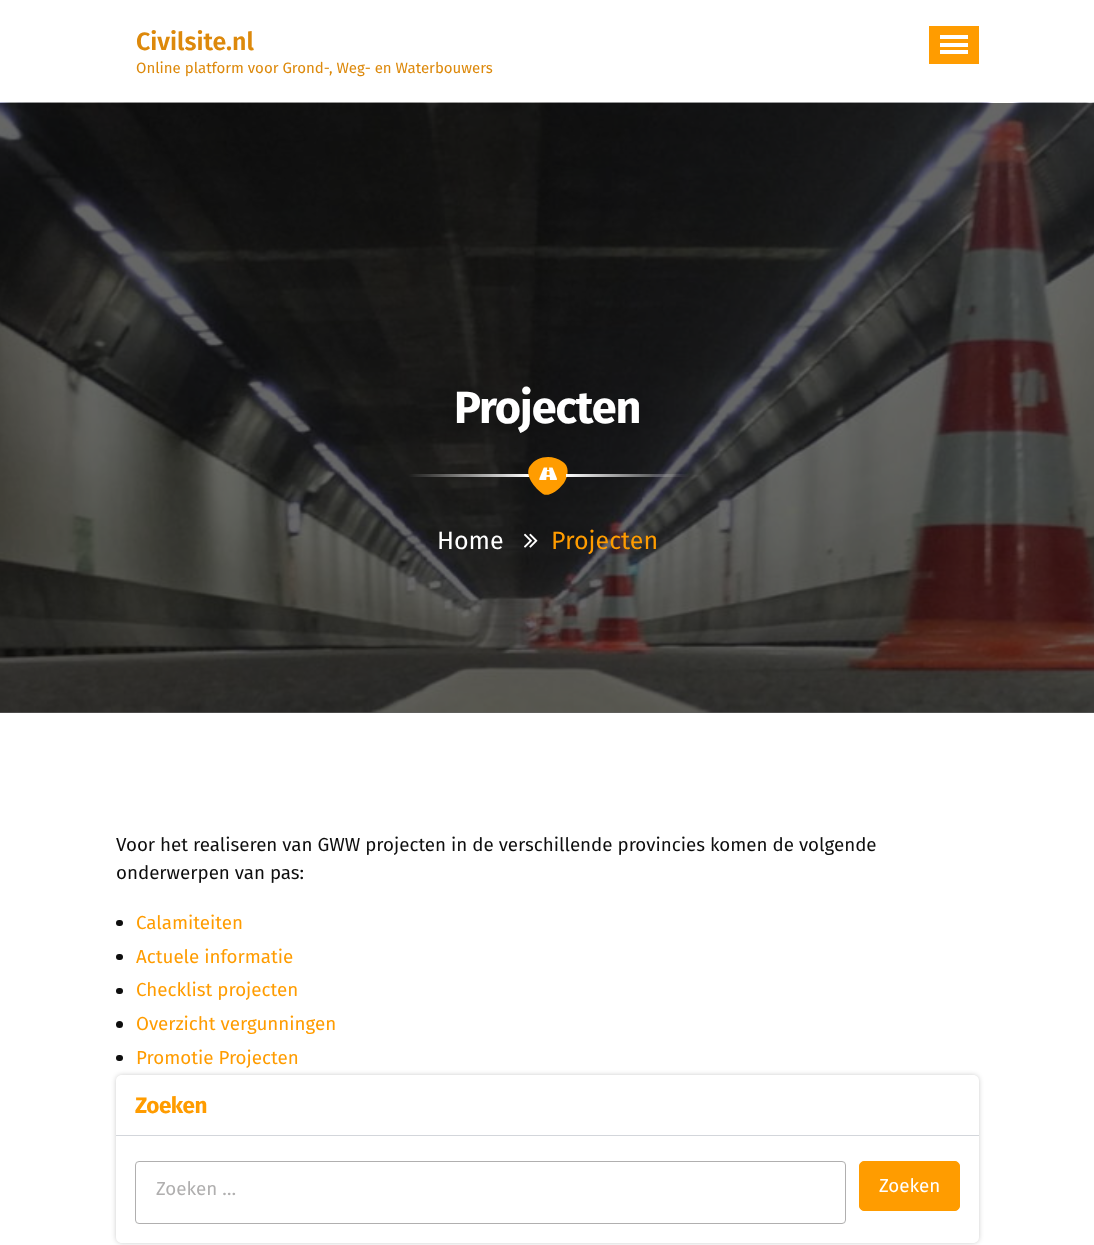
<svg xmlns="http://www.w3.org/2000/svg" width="1094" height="1245">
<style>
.a{font:600 25px Fira Sans;fill:#dd890b}
.b{font:15px Fira Sans;fill:#dd890b}
.c{font:bold 45px Fira Sans;letter-spacing:-1px;fill:#fff}
.d{font:25px Fira Sans;fill:#fff}
.e{font:25px Fira Sans;fill:#ff9c00}
.f{font:18.75px Fira Sans;fill:#0e0e0e}
.g{font:18.75px Fira Sans;fill:#ff9c00}
.h{font:bold 22.5px Fira Sans;letter-spacing:-0.5px;fill:#ff9c00}
.i{font:18.75px Fira Sans;fill:#b0afaf}
.j{font:18.75px Fira Sans;fill:#fff}
</style>
<defs>
<linearGradient id="g1" gradientUnits="userSpaceOnUse" x1="566" y1="475" x2="689" y2="475"><stop offset="0" stop-color="#fff"/><stop offset="1" stop-color="#fff" stop-opacity="0"/></linearGradient>
<clipPath id="clip1"><path d="M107 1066h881v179h-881zm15 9h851c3.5 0 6 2.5 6 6v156c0 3.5-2.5 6-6 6h-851c-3.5 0-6-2.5-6-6v-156c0-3.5 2.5-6 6-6z" clip-rule="evenodd"/></clipPath>
</defs>
<rect width="100%" height="100%" fill="#fff"/>
<path fill="#666" d="M0 712h1094v1H0z"/>
<path fill="#ff9c00" d="M929 26h50v38H929z"/>
<path fill="#fff" d="M940 35h28v4H940z"/>
<path fill="#fff" d="M940 43h28v4H940z"/>
<path fill="#fff" d="M940 50h28v4H940z"/>
<image href="1.png" x="0" y="102" width="1094" height="611"/>
<path fill="#ff9c00" d="M530 466c7-10 22-12 33-4c6 4 6 13 1 21c-7 9-16 14-21 11c-12-9-18-21-13-28z"/>
<image href="2.png" x="539" y="467" width="18" height="13"/>
<path fill="url(#g1)" d="M566 474h123v3H566z"/>
<image href="3.png" x="524" y="533" width="14" height="15"/>
<rect fill="#0e0e0e" x="116" y="920" width="7" height="6" rx="3"/>
<rect fill="#0e0e0e" x="116" y="954" width="7" height="6" rx="3"/>
<rect fill="#0e0e0e" x="116" y="988" width="7" height="6" rx="3"/>
<circle fill="#0e0e0e" cx="119.5" cy="1024.5" r="3.5"/>
<rect fill="#0e0e0e" x="116" y="1055" width="7" height="6" rx="3"/>
<g clip-path="url(#clip1)">
<rect fill="#00000033" filter="blur(2.5px)" x="116" y="1075" width="863" height="168" rx="6"/>
</g>
<path fill="#d3d6db" d="M116 1135h863v1H116z"/>
<rect fill="none" stroke="#b0afaf" x="135.5" y="1161.5" width="710" height="62" rx="3.5"/>
<rect fill="#ff9c00" stroke="#ff9c00" x="859.5" y="1161.5" width="100" height="49" rx="4.5"/>
<text class="a" x="136" y="50">Civilsite.nl</text>
<text class="b" x="136" y="73">Online platform voor Grond-, Weg- en Waterbouwers</text>
<text class="c" x="454" y="423">Projecten</text>
<text class="d" x="437" y="549">Home</text>
<text class="e" x="551" y="549">Projecten</text>
<text class="f" x="116" y="851">Voor het realiseren van GWW projecten in de verschillende provincies komen de volgende</text>
<text class="f" x="116" y="879">onderwerpen van pas:</text>
<text class="g" x="136" y="929">Calamiteiten</text>
<text class="g" x="136" y="963">Actuele informatie</text>
<text class="g" x="136" y="996">Checklist projecten</text>
<text class="g" x="136" y="1030">Overzicht vergunningen</text>
<text class="g" x="136" y="1064">Promotie Projecten</text>
<text class="h" x="135" y="1113">Zoeken</text>
<text class="i" x="156" y="1195">Zoeken …</text>
<text class="j" x="879" y="1192">Zoeken</text>
</svg>
